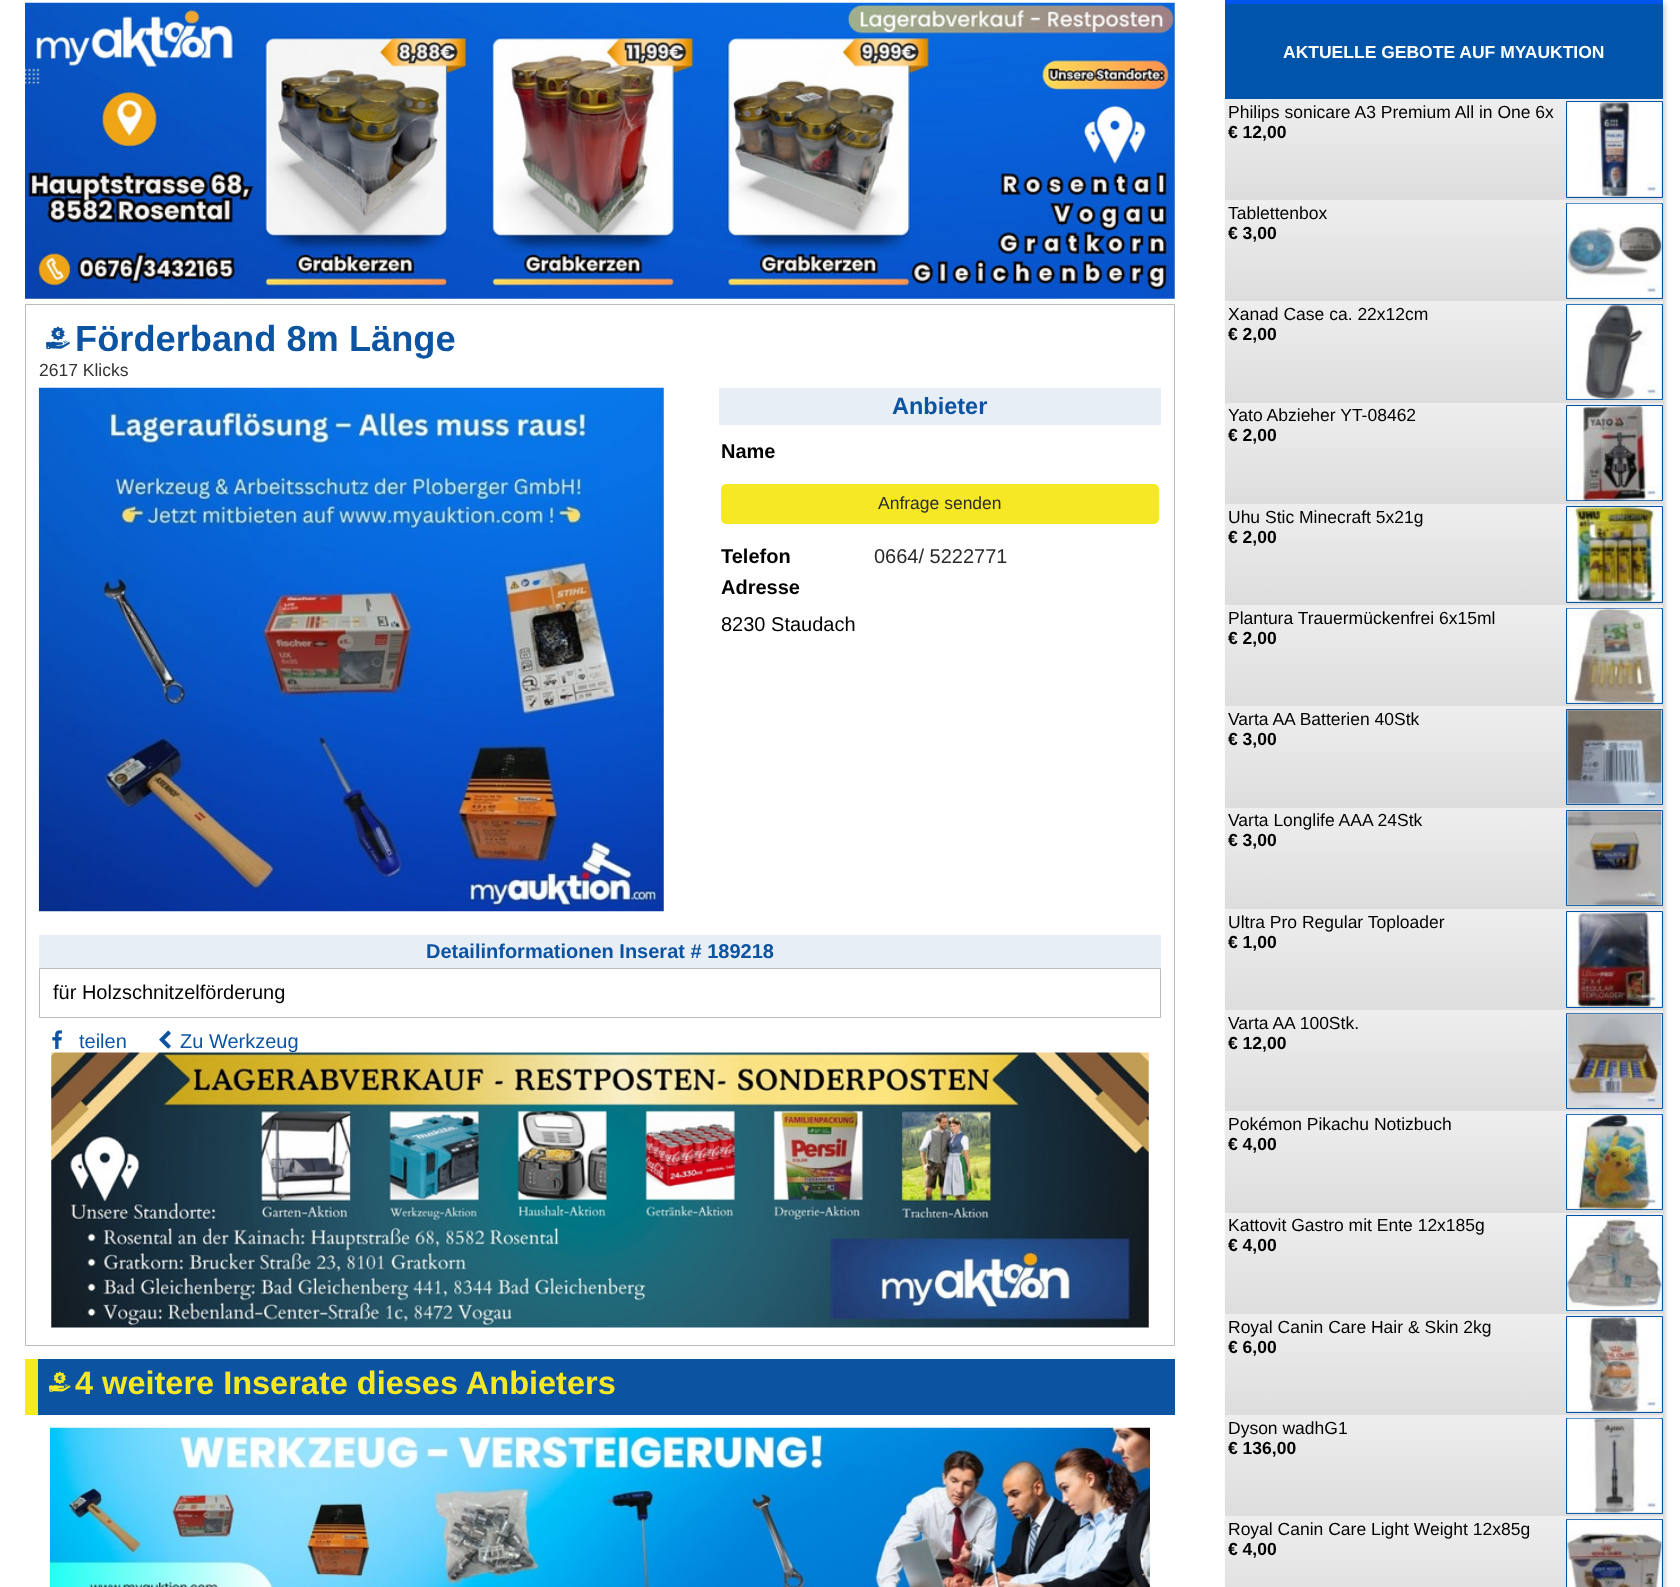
<svg xmlns="http://www.w3.org/2000/svg" width="1680" height="1587">
<style>
.a{font:bold 17.5px Liberation Sans;fill:#fff}
.b{font:17.5px Liberation Sans;fill:#000}
.c{font:bold 17.5px Liberation Sans;fill:#000}
.d{font:bold 36.25px Liberation Sans;fill:#0c54a2}
.e{font:17.5px Liberation Sans;fill:#333}
.f{font:bold 23.5px Liberation Sans;fill:#0c54a2}
.g{font:bold 20px Liberation Sans;fill:#000}
.h{font:17.5px Liberation Sans;fill:#2b2b2b}
.i{font:20px Liberation Sans;fill:#2b2b2b}
.j{font:20px Liberation Sans;fill:#000}
.k{font:bold 20px Liberation Sans;fill:#0c54a2}
.l{font:20px Liberation Sans;fill:#0c54a2}
.m{font:bold 32.5px Liberation Sans;fill:#f6e825}
</style>
<defs>
<linearGradient id="g1" gradientUnits="userSpaceOnUse" x1="1446" y1="99" x2="1446" y2="200"><stop offset="0" stop-color="#eee"/><stop offset="1" stop-color="#ddd"/></linearGradient>
<linearGradient id="g2" gradientUnits="userSpaceOnUse" x1="1446" y1="200" x2="1446" y2="301"><stop offset="0" stop-color="#eee"/><stop offset="1" stop-color="#ddd"/></linearGradient>
<linearGradient id="g3" gradientUnits="userSpaceOnUse" x1="1446" y1="301" x2="1446" y2="403"><stop offset="0" stop-color="#eee"/><stop offset="1" stop-color="#ddd"/></linearGradient>
<linearGradient id="g4" gradientUnits="userSpaceOnUse" x1="1446" y1="403" x2="1446" y2="504"><stop offset="0" stop-color="#eee"/><stop offset="1" stop-color="#ddd"/></linearGradient>
<linearGradient id="g5" gradientUnits="userSpaceOnUse" x1="1446" y1="504" x2="1446" y2="605"><stop offset="0" stop-color="#eee"/><stop offset="1" stop-color="#ddd"/></linearGradient>
<linearGradient id="g6" gradientUnits="userSpaceOnUse" x1="1446" y1="605" x2="1446" y2="706"><stop offset="0" stop-color="#eee"/><stop offset="1" stop-color="#ddd"/></linearGradient>
<linearGradient id="g7" gradientUnits="userSpaceOnUse" x1="1446" y1="706" x2="1446" y2="808"><stop offset="0" stop-color="#eee"/><stop offset="1" stop-color="#ddd"/></linearGradient>
<linearGradient id="g8" gradientUnits="userSpaceOnUse" x1="1446" y1="808" x2="1446" y2="909"><stop offset="0" stop-color="#eee"/><stop offset="1" stop-color="#ddd"/></linearGradient>
<linearGradient id="g9" gradientUnits="userSpaceOnUse" x1="1446" y1="909" x2="1446" y2="1010"><stop offset="0" stop-color="#eee"/><stop offset="1" stop-color="#ddd"/></linearGradient>
<linearGradient id="g10" gradientUnits="userSpaceOnUse" x1="1446" y1="1010" x2="1446" y2="1111"><stop offset="0" stop-color="#eee"/><stop offset="1" stop-color="#ddd"/></linearGradient>
<linearGradient id="g11" gradientUnits="userSpaceOnUse" x1="1446" y1="1111" x2="1446" y2="1213"><stop offset="0" stop-color="#eee"/><stop offset="1" stop-color="#ddd"/></linearGradient>
<linearGradient id="g12" gradientUnits="userSpaceOnUse" x1="1446" y1="1213" x2="1446" y2="1314"><stop offset="0" stop-color="#eee"/><stop offset="1" stop-color="#ddd"/></linearGradient>
<linearGradient id="g13" gradientUnits="userSpaceOnUse" x1="1446" y1="1314" x2="1446" y2="1415"><stop offset="0" stop-color="#eee"/><stop offset="1" stop-color="#ddd"/></linearGradient>
<linearGradient id="g14" gradientUnits="userSpaceOnUse" x1="1446" y1="1415" x2="1446" y2="1516"><stop offset="0" stop-color="#eee"/><stop offset="1" stop-color="#ddd"/></linearGradient>
<linearGradient id="g15" gradientUnits="userSpaceOnUse" x1="1446" y1="1516" x2="1446" y2="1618"><stop offset="0" stop-color="#eee"/><stop offset="1" stop-color="#ddd"/></linearGradient>
</defs>
<rect width="100%" height="100%" fill="#fff"/>
<image href="1.png" x="25" y="2" width="1150" height="297"/>
<path fill="#ccc" filter="blur(2.5px)" d="M1228 3h437v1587H1228z"/>
<path fill="#05a" d="M1225 4h438v95H1225z"/>
<path fill="#05e" d="M1225 0h438v4H1225z"/>
<path fill="url(#g1)" d="M1225 99h438v101H1225z"/>
<path fill="none" stroke="#05a" d="M1566.5 101.5h96v96H1566.5z"/>
<image href="2.png" x="1567" y="102" width="95" height="95"/>
<path fill="url(#g2)" d="M1225 200h438v101H1225z"/>
<path fill="none" stroke="#05a" d="M1566.5 203.5h96v95H1566.5z"/>
<image href="3.png" x="1567" y="203" width="95" height="96"/>
<path fill="url(#g3)" d="M1225 301h438v102H1225z"/>
<path fill="none" stroke="#05a" d="M1566.5 304.5h96v95H1566.5z"/>
<image href="4.png" x="1567" y="304" width="95" height="96"/>
<path fill="url(#g4)" d="M1225 403h438v101H1225z"/>
<path fill="none" stroke="#05a" d="M1566.5 405.5h96v95H1566.5z"/>
<image href="5.png" x="1567" y="406" width="95" height="95"/>
<path fill="url(#g5)" d="M1225 504h438v101H1225z"/>
<path fill="none" stroke="#05a" d="M1566.5 506.5h96v96H1566.5z"/>
<image href="6.png" x="1567" y="507" width="95" height="95"/>
<path fill="url(#g6)" d="M1225 605h438v101H1225z"/>
<path fill="none" stroke="#05a" d="M1566.5 608.5h96v95H1566.5z"/>
<image href="7.png" x="1567" y="608" width="95" height="96"/>
<path fill="url(#g7)" d="M1225 706h438v102H1225z"/>
<path fill="none" stroke="#05a" d="M1566.5 709.5h96v95H1566.5z"/>
<image href="8.png" x="1567" y="709" width="95" height="96"/>
<path fill="url(#g8)" d="M1225 808h438v101H1225z"/>
<path fill="none" stroke="#05a" d="M1566.5 810.5h96v95H1566.5z"/>
<image href="9.png" x="1567" y="811" width="95" height="95"/>
<path fill="url(#g9)" d="M1225 909h438v101H1225z"/>
<path fill="none" stroke="#05a" d="M1566.5 911.5h96v96H1566.5z"/>
<image href="10.png" x="1567" y="912" width="95" height="95"/>
<path fill="url(#g10)" d="M1225 1010h438v101H1225z"/>
<path fill="none" stroke="#05a" d="M1566.5 1013.5h96v95H1566.5z"/>
<image href="11.png" x="1567" y="1013" width="95" height="96"/>
<path fill="url(#g11)" d="M1225 1111h438v102H1225z"/>
<path fill="none" stroke="#05a" d="M1566.5 1114.5h96v95H1566.5z"/>
<image href="12.png" x="1567" y="1114" width="95" height="96"/>
<path fill="url(#g12)" d="M1225 1213h438v101H1225z"/>
<path fill="none" stroke="#05a" d="M1566.5 1215.5h96v95H1566.5z"/>
<image href="13.png" x="1567" y="1216" width="95" height="95"/>
<path fill="url(#g13)" d="M1225 1314h438v101H1225z"/>
<path fill="none" stroke="#05a" d="M1566.5 1316.5h96v96H1566.5z"/>
<image href="14.png" x="1567" y="1317" width="95" height="95"/>
<path fill="url(#g14)" d="M1225 1415h438v101H1225z"/>
<path fill="none" stroke="#05a" d="M1566.5 1418.5h96v95H1566.5z"/>
<image href="15.png" x="1567" y="1418" width="95" height="96"/>
<path fill="url(#g15)" d="M1225 1516h438v71H1225z"/>
<path fill="none" stroke="#05a" d="M1566.5 1519.5h96v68H1566.5z"/>
<image href="16.png" x="1567" y="1519" width="95" height="68"/>
<path fill="none" stroke="#bbb" d="M25.5 304.5h1149v1041H25.5z"/>
<image href="17.png" x="46" y="326" width="24" height="24"/>
<image href="18.png" x="38" y="387" width="626" height="525"/>
<path fill="#e7eef6" d="M719 388h442v37H719z"/>
<rect fill="#f6e825" x="721" y="484" width="438" height="40" rx="5"/>
<path fill="#e7eef6" d="M39 935h1122v33H39z"/>
<path fill="none" stroke="#bbb" d="M39.5 968.5h1121v49H39.5z"/>
<image href="19.png" x="52" y="1030" width="10" height="19"/>
<image href="20.png" x="159" y="1030" width="12" height="19"/>
<path fill="#0c54a2" d="M38 1359h1137v56H38z"/>
<path fill="#f6e825" d="M25 1359h13v56H25z"/>
<image href="22.png" x="49" y="1371" width="22" height="21"/>
<image href="23.png" x="50" y="1427" width="1100" height="160"/>
<text class="a" x="1283" y="58">AKTUELLE GEBOTE AUF MYAUKTION</text>
<text class="b" x="1228" y="118">Philips sonicare A3 Premium All in One 6x</text>
<text class="c" x="1228" y="138">€ 12,00</text>
<text class="b" x="1228" y="219">Tablettenbox</text>
<text class="c" x="1228" y="239">€ 3,00</text>
<text class="b" x="1228" y="320">Xanad Case ca. 22x12cm</text>
<text class="c" x="1228" y="340">€ 2,00</text>
<text class="b" x="1228" y="421">Yato Abzieher YT-08462</text>
<text class="c" x="1228" y="441">€ 2,00</text>
<text class="b" x="1228" y="523">Uhu Stic Minecraft 5x21g</text>
<text class="c" x="1228" y="543">€ 2,00</text>
<text class="b" x="1228" y="624">Plantura Trauermückenfrei 6x15ml</text>
<text class="c" x="1228" y="644">€ 2,00</text>
<text class="b" x="1228" y="725">Varta AA Batterien 40Stk</text>
<text class="c" x="1228" y="745">€ 3,00</text>
<text class="b" x="1228" y="826">Varta Longlife AAA 24Stk</text>
<text class="c" x="1228" y="846">€ 3,00</text>
<text class="b" x="1228" y="928">Ultra Pro Regular Toploader</text>
<text class="c" x="1228" y="948">€ 1,00</text>
<text class="b" x="1228" y="1029">Varta AA 100Stk.</text>
<text class="c" x="1228" y="1049">€ 12,00</text>
<text class="b" x="1228" y="1130">Pokémon Pikachu Notizbuch</text>
<text class="c" x="1228" y="1150">€ 4,00</text>
<text class="b" x="1228" y="1231">Kattovit Gastro mit Ente 12x185g</text>
<text class="c" x="1228" y="1251">€ 4,00</text>
<text class="b" x="1228" y="1333">Royal Canin Care Hair &amp; Skin 2kg</text>
<text class="c" x="1228" y="1353">€ 6,00</text>
<text class="b" x="1228" y="1434">Dyson wadhG1</text>
<text class="c" x="1228" y="1454">€ 136,00</text>
<text class="b" x="1228" y="1535">Royal Canin Care Light Weight 12x85g</text>
<text class="c" x="1228" y="1555">€ 4,00</text>
<text class="d" x="75" y="351">Förderband 8m Länge</text>
<text class="e" x="39" y="376">2617 Klicks</text>
<text class="f" x="892" y="414">Anbieter</text>
<text class="g" x="721" y="458">Name</text>
<text class="h" x="878" y="509">Anfrage senden</text>
<text class="g" x="721" y="563">Telefon</text>
<text class="i" x="874" y="563">0664/ 5222771</text>
<text class="g" x="721" y="594">Adresse</text>
<text class="j" x="721" y="631">8230 Staudach</text>
<text class="k" x="426" y="958">Detailinformationen Inserat # 189218</text>
<text class="j" x="53" y="999">für Holzschnitzelförderung</text>
<text class="l" x="79" y="1048">teilen</text>
<text class="l" x="180" y="1048">Zu Werkzeug</text>
<image href="21.png" x="51" y="1052" width="1098" height="276"/>
<text class="m" x="75" y="1394">4 weitere Inserate dieses Anbieters</text>
</svg>
